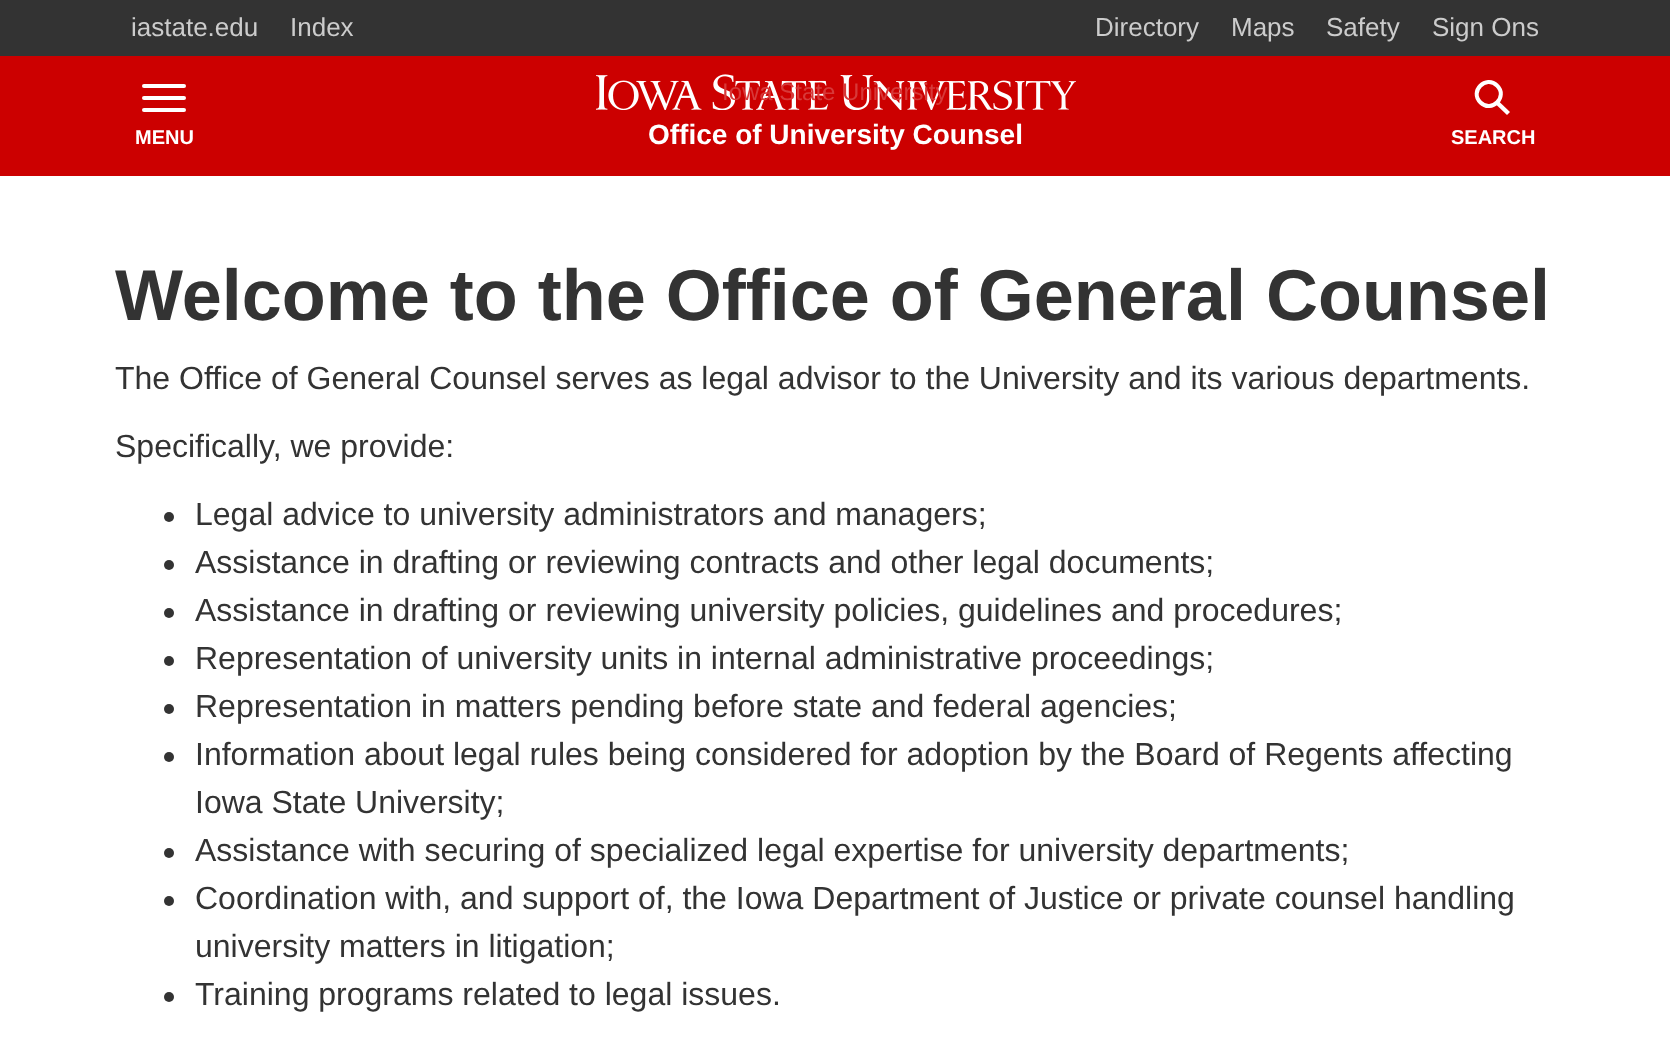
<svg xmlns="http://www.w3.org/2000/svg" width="1670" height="1053">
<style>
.a{font:26px Liberation Sans;fill:#ccc}
.b{font:24px Liberation Sans;fill:#d73939}
.c{font:bold 28px Liberation Sans;fill:#fff}
.d{font:bold 20px Liberation Sans;fill:#fff}
.e{font:bold 72px Liberation Sans;fill:#333}
.f{font:32px Liberation Sans;fill:#333}
</style>
<rect width="100%" height="100%" fill="#333"/>
<path fill="#c00" d="M0 56h1670v120H0z"/>
<image href="1.png" x="596" y="74" width="480" height="36"/>
<rect fill="#fff" x="142" y="84" width="44" height="4" rx="2"/>
<rect fill="#fff" x="142" y="96" width="44" height="4" rx="2"/>
<rect fill="#fff" x="142" y="108" width="44" height="4" rx="2"/>
<path fill="none" stroke="#fff" stroke-width="4" d="M1497 85.5c11.5 11-5.5 28-16.5 17c-11.5-11 5.5-28 16.5-17z"/>
<path fill="#fff" d="M1495.5 104l3-3l11.5 11l-3 3z"/>
<path fill="#fff" d="M0 176h1670v877H0z"/>
<circle fill="#333" cx="169" cy="517" r="5"/>
<circle fill="#333" cx="169" cy="565" r="5"/>
<circle fill="#333" cx="169" cy="613" r="5"/>
<circle fill="#333" cx="169" cy="661" r="5"/>
<circle fill="#333" cx="169" cy="709" r="5"/>
<circle fill="#333" cx="169" cy="757" r="5"/>
<circle fill="#333" cx="169" cy="853" r="5"/>
<circle fill="#333" cx="169" cy="901" r="5"/>
<circle fill="#333" cx="169" cy="997" r="5"/>
<text class="a" x="131" y="36">iastate.edu</text>
<text class="a" x="290" y="36">Index</text>
<text class="a" x="1095" y="36">Directory</text>
<text class="a" x="1231" y="36">Maps</text>
<text class="a" x="1326" y="36">Safety</text>
<text class="a" x="1432" y="36">Sign Ons</text>
<text class="b" x="722" y="100">Iowa State University</text>
<text class="c" x="648" y="144">Office of University Counsel</text>
<text class="d" x="135" y="144">MENU</text>
<text class="d" x="1451" y="144">SEARCH</text>
<text class="e" x="115" y="320">Welcome to the Office of General Counsel</text>
<text class="f" x="115" y="389">The Office of General Counsel serves as legal advisor to the University and its various departments.</text>
<text class="f" x="115" y="457">Specifically, we provide:</text>
<text class="f" x="195" y="525">Legal advice to university administrators and managers;</text>
<text class="f" x="195" y="573">Assistance in drafting or reviewing contracts and other legal documents;</text>
<text class="f" x="195" y="621">Assistance in drafting or reviewing university policies, guidelines and procedures;</text>
<text class="f" x="195" y="669">Representation of university units in internal administrative proceedings;</text>
<text class="f" x="195" y="717">Representation in matters pending before state and federal agencies;</text>
<text class="f" x="195" y="765">Information about legal rules being considered for adoption by the Board of Regents affecting</text>
<text class="f" x="195" y="813">Iowa State University;</text>
<text class="f" x="195" y="861">Assistance with securing of specialized legal expertise for university departments;</text>
<text class="f" x="195" y="909">Coordination with, and support of, the Iowa Department of Justice or private counsel handling</text>
<text class="f" x="195" y="957">university matters in litigation;</text>
<text class="f" x="195" y="1005">Training programs related to legal issues.</text>
</svg>
